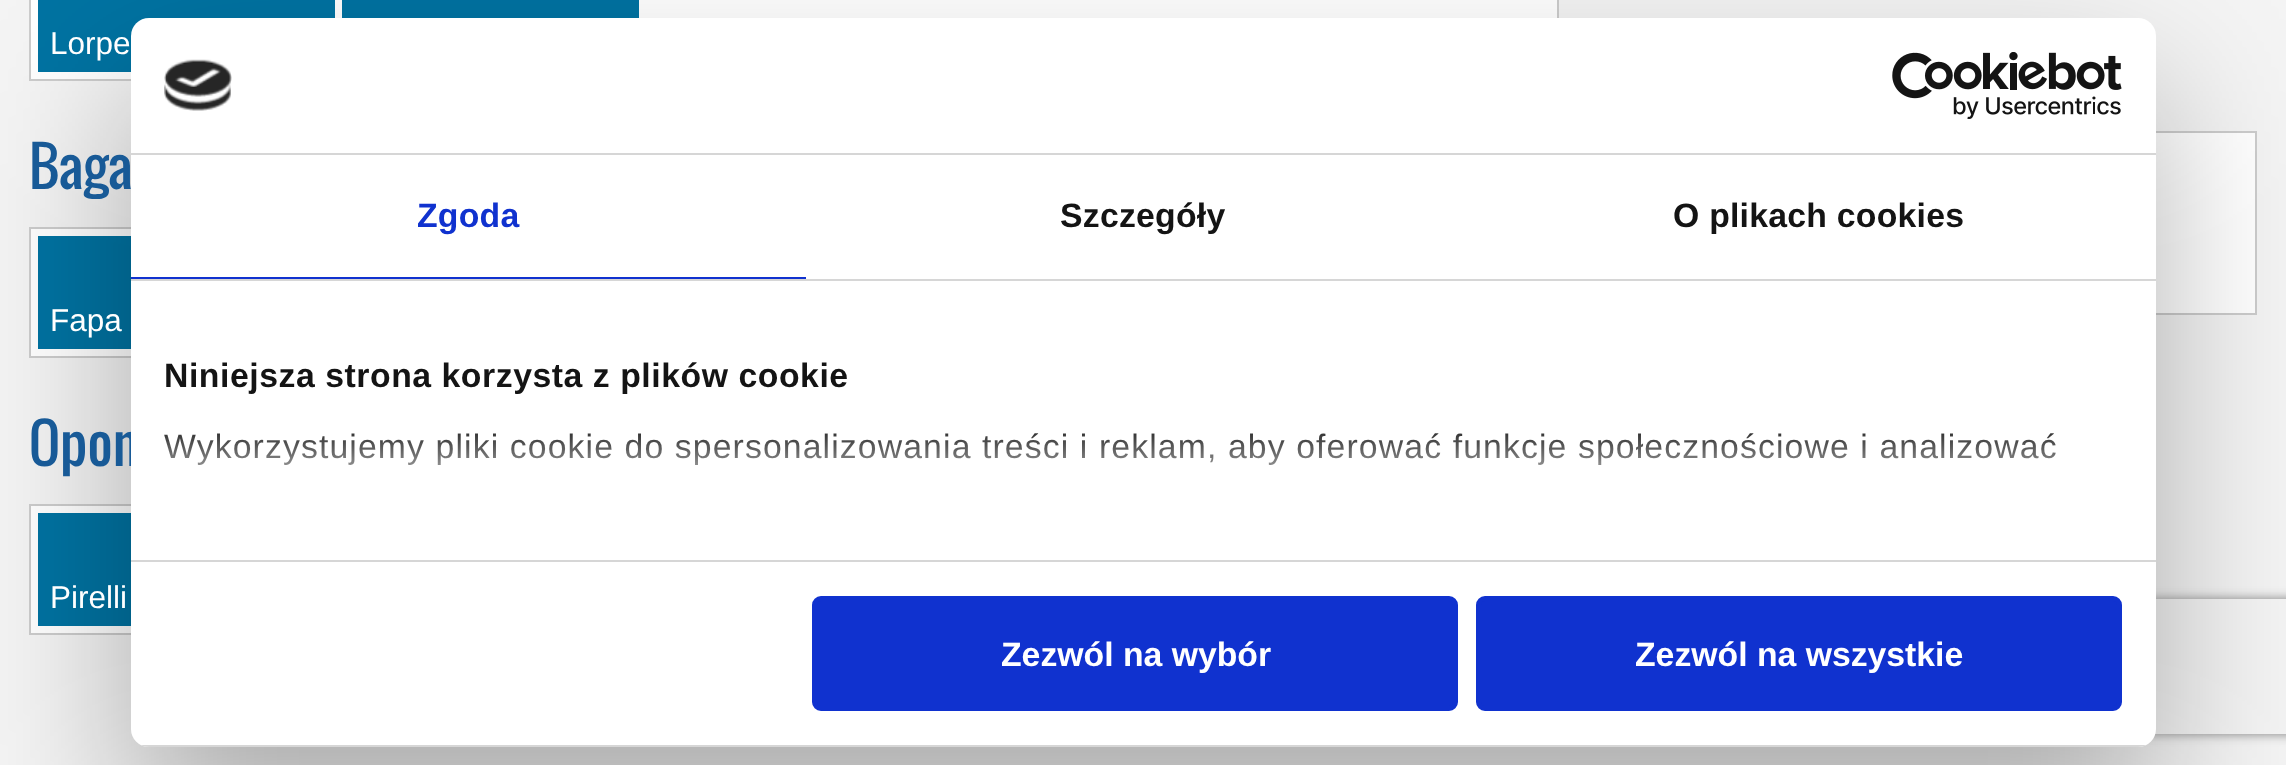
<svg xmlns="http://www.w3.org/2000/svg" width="2286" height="765">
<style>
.a{font:31.5px Liberation Sans;fill:#fff}
.b{font:54px Oswald;fill:#185a97}
.c{font:bold 33.75px Liberation Sans;letter-spacing:0.25px;fill:#1032cf}
.d{font:bold 33.75px Liberation Sans;letter-spacing:0.25px;fill:#141414}
.e{font:bold 33.75px Liberation Sans;letter-spacing:0.55px;fill:#141414}
.f{font:33.75px Liberation Sans;letter-spacing:1.12px;fill:#141414}
.g{font:bold 33.75px Liberation Sans;fill:#fff}
</style>
<defs>
<clipPath id="clip1"><path d="M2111 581h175v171h-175zm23 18h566c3 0 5 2 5 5v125c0 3-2 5-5 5h-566c-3 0-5-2-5-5v-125c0-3 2-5 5-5z" clip-rule="evenodd"/></clipPath>
<linearGradient id="g1" gradientUnits="userSpaceOnUse" x1="1128" y1="560" x2="1128" y2="421"><stop offset="0" stop-color="#fff"/><stop offset="0.5" stop-color="#fff" stop-opacity="0.8"/><stop offset="1" stop-color="#fff" stop-opacity="0"/></linearGradient>
<clipPath id="clip2"><rect x="131" y="18" width="2025" height="729" rx="18"/></clipPath>
</defs>
<rect width="100%" height="100%" fill="#f4f4f4"/>
<path fill="#fff" stroke="#ccc" stroke-width="2" d="M30 -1h1528v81H30z"/>
<path fill="#0073a2" d="M342 0h297v18H342z"/>
<path fill="#0073a2" d="M38 0h297v72H38z"/>
<path fill="#fff" d="M31 229h100v127H31z"/>
<path fill="none" stroke="#ccc" stroke-width="2" d="M30 228h1528v129H30z"/>
<path fill="#0073a2" d="M38 236h93v113H38z"/>
<path fill="#fff" d="M31 506h100v127H31z"/>
<path fill="none" stroke="#ccc" stroke-width="2" d="M30 505h1528v129H30z"/>
<path fill="#0073a2" d="M38 513h93v113H38z"/>
<path fill="#fff" d="M2156 133h99v180H2156z"/>
<path fill="none" stroke="#ccc" stroke-width="2" d="M1583 132h673v182H1583z"/>
<rect fill="#0000004d" filter="blur(76.5px)" x="131" y="90" width="2025" height="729" rx="18"/>
<g clip-path="url(#clip1)">
<rect fill="#808080" filter="blur(5.5px)" x="2129" y="599" width="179" height="135" rx="5"/>
</g>
<text class="a" x="50" y="54">Lorpe</text>
<text class="b" x="29" y="189">Baga</text>
<text class="a" x="50" y="331">Fapa</text>
<text class="b" x="29" y="466">Opon</text>
<text class="a" x="50" y="608">Pirelli</text>
<rect fill="#fff" x="131" y="18" width="2025" height="729" rx="18"/>
<path fill="#d6d6d6" d="M131 153h2025v2H131z"/>
<image href="1.png" x="164" y="59" width="68" height="52"/>
<image href="2.png" x="1892" y="52" width="230" height="67"/>
<path fill="#d6d6d6" d="M131 279h2025v2H131z"/>
<path fill="#1032cf" d="M131 277h675v2H131z"/>
<text class="c" x="417" y="227">Zgoda</text>
<text class="d" x="1060" y="227">Szczegóły</text>
<text class="d" x="1673" y="227">O plikach cookies</text>
<path fill="#d6d6d6" d="M131 560h2025v2H131z"/>
<text class="e" x="164" y="387">Niniejsza strona korzysta z plików cookie</text>
<text class="f" x="164" y="458">Wykorzystujemy pliki cookie do spersonalizowania treści i reklam, aby oferować funkcje społecznościowe i analizować</text>
<path fill="url(#g1)" d="M164 433h1893v32H164z"/>
<g clip-path="url(#clip2)">
<path fill="#d6d6d6" d="M141 745h2005v2H141z"/>
</g>
<rect fill="#1032cf" stroke="#1032cf" stroke-width="5" x="814.5" y="598.5" width="641" height="110" rx="6.5"/>
<text class="g" x="1001" y="666">Zezwól na wybór</text>
<rect fill="#1032cf" stroke="#1032cf" stroke-width="5" x="1478.5" y="598.5" width="641" height="110" rx="6.5"/>
<text class="g" x="1635" y="666">Zezwól na wszystkie</text>
</svg>
